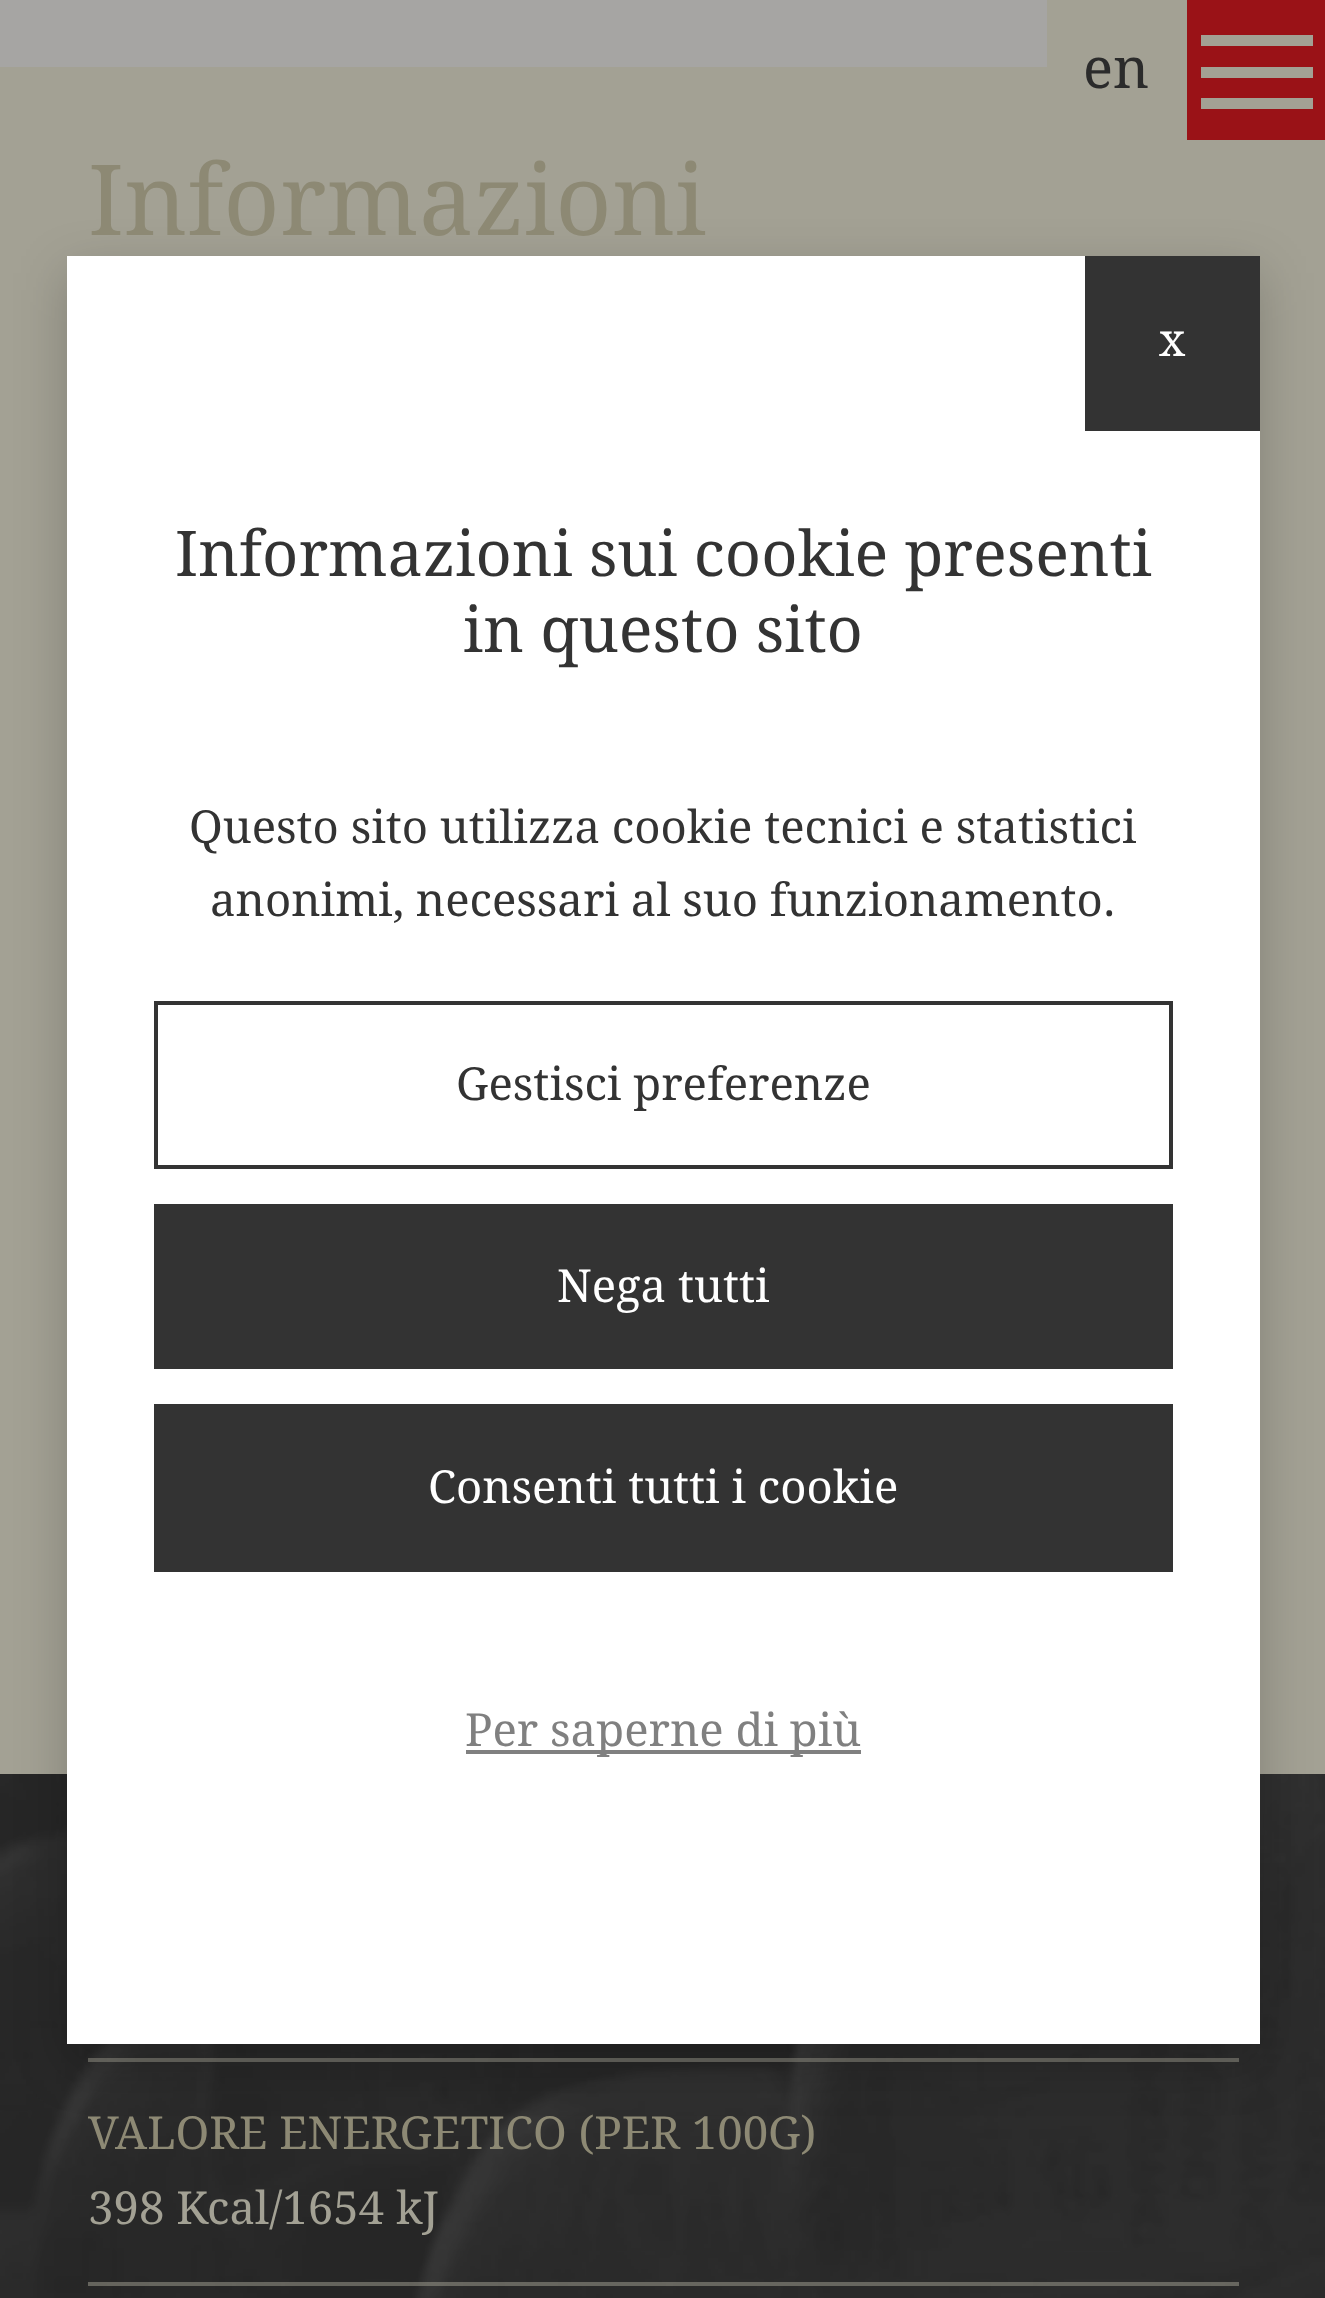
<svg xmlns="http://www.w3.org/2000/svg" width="1325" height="2298">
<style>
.a{font:56px Droid Serif;fill:#2b2b2b}
.b{font:98px Droid Serif;fill:#8d8974}
.c{font:45.5px Droid Serif;fill:#8d8974}
.d{font:45.5px Droid Serif;fill:#a3a194}
.e{font:45.5px Droid Serif;fill:#fff}
.f{font:63px Droid Serif;fill:#333}
.g{font:45.5px Droid Serif;fill:#333}
.h{font:45.5px Droid Serif;fill:#808080}
</style>
<defs>
<clipPath id="clip1"><path d="M88 2058h1151v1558H88z"/></clipPath>
</defs>
<rect width="100%" height="100%" fill="#a3a194"/>
<path fill="#9a1217" d="M1187 0h138v140H1187z"/>
<path fill="#a3a194" d="M1201 35h112v11H1201z"/>
<path fill="#a3a194" d="M1201 67h112v11H1201z"/>
<path fill="#a3a194" d="M1201 98h112v11H1201z"/>
<path fill="#a6a5a3" d="M0 0h1047v67H0z"/>
<image href="1.png" x="0" y="1774" width="1325" height="524"/>
<path fill="#a3a19480" d="M88 2058h1151v4H88z"/>
<path fill="#a3a19480" d="M88 2282h1151v4H88z"/>
<path fill="#00000033" filter="blur(26px)" d="M67 273h1193v1789H67z"/>
<path fill="#fff" d="M67 256h1193v1788H67z"/>
<path fill="#333" d="M1085 256h175v175H1085z"/>
<path fill="none" stroke="#333" stroke-width="4" d="M156 1003h1015v164H156z"/>
<path fill="#333" d="M154 1204h1019v165H154z"/>
<path fill="#333" d="M154 1404h1019v168H154z"/>
<path fill="#808080" d="M466 1750h395v4H466z"/>
<text class="a" x="1083" y="88">en</text>
<text class="b" x="88" y="235">Informazioni</text>
<g clip-path="url(#clip1)">
<text class="c" x="88" y="2149">VALORE ENERGETICO (PER 100G)</text>
</g>
<text class="d" x="88" y="2224">398 Kcal/1654 kJ</text>
<text class="e" x="1159" y="356">x</text>
<text class="f" x="175" y="576">Informazioni sui cookie presenti</text>
<text class="f" x="463" y="652">in questo sito</text>
<text class="g" x="189" y="843">Questo sito utilizza cookie tecnici e statistici</text>
<text class="g" x="210" y="916">anonimi, necessari al suo funzionamento.</text>
<text class="g" x="456" y="1100">Gestisci preferenze</text>
<text class="e" x="557" y="1302">Nega tutti</text>
<text class="e" x="428" y="1503">Consenti tutti i cookie</text>
<text class="h" x="465" y="1746">Per saperne di più</text>
</svg>
